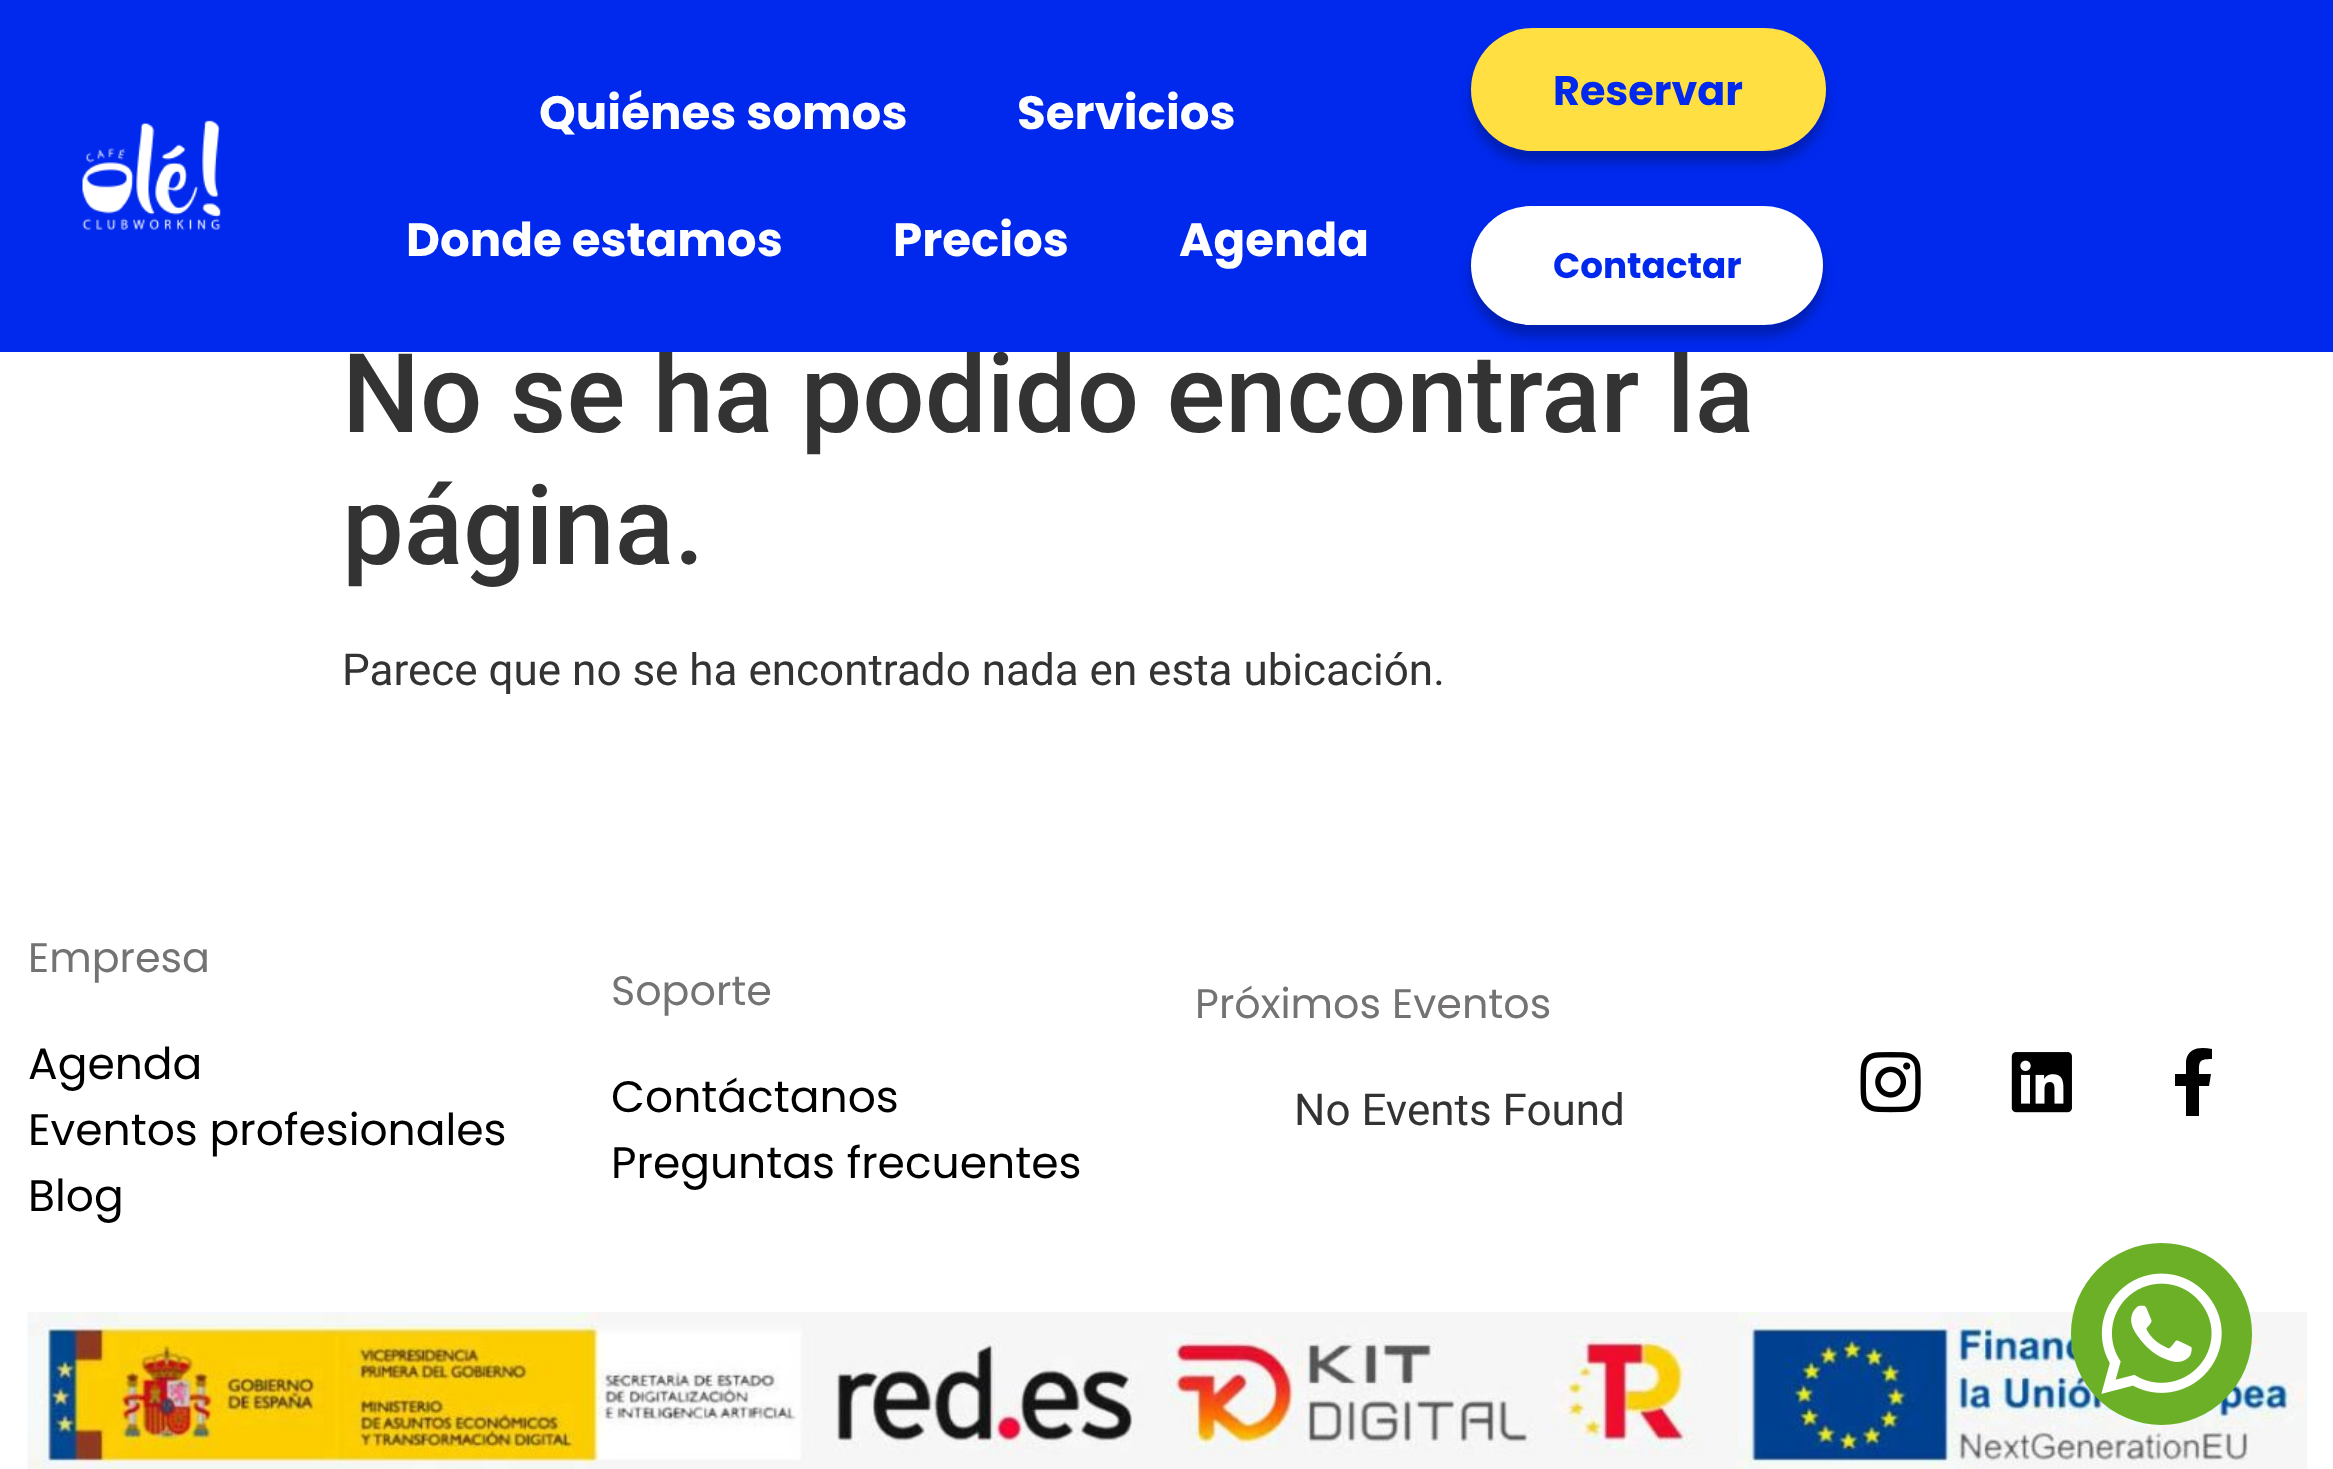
<svg xmlns="http://www.w3.org/2000/svg" width="2333" height="1469">
<style>
.a{font:500 110px Roboto;fill:#333}
.b{font:bold 46.75px Poppins;fill:#fff}
.c{font:bold 35.75px Poppins;fill:#0029ed}
.d{font:bold 41.25px Poppins;fill:#0029ed}
.e{font:44px Roboto;fill:#333}
.f{font:41.25px Poppins;fill:#747272}
.g{font:44px Poppins;fill:#000}
</style>
<rect width="100%" height="100%" fill="#fff"/>
<image href="2.png" x="1860" y="1052" width="61" height="61"/>
<image href="3.png" x="2011" y="1052" width="61" height="61"/>
<path fill="#000" d="M2209 1086l2-12h-12c0-12-1-15 13-15v-10c-11-2-24-2-26 12v13h-11v12h11v30h13v-30z"/>
<image href="4.png" x="27" y="1311" width="2281" height="158"/>
<rect fill="#6bb026" x="2071" y="1243" width="181" height="182" rx="90.5"/>
<image href="5.png" x="2101" y="1273" width="121" height="121"/>
<text class="a" x="342" y="432">No se ha podido encontrar la</text>
<path fill="#0029ed" d="M0 0h2333v352H0z"/>
<text class="b" x="1179" y="256">Agenda</text>
<text class="b" x="893" y="256">Precios</text>
<text class="b" x="406" y="256">Donde estamos</text>
<text class="b" x="1017" y="129">Servicios</text>
<text class="b" x="539" y="129">Quiénes somos</text>
<rect fill="#00000040" filter="blur(5.5px)" x="1471" y="217" width="352" height="119" rx="59.5"/>
<rect fill="#fff" x="1471" y="206" width="352" height="119" rx="59.5"/>
<text class="c" x="1553" y="278">Contactar</text>
<rect fill="#00000040" filter="blur(5.5px)" x="1471" y="39" width="355" height="123" rx="61.5"/>
<rect fill="#ffdf41" x="1471" y="28" width="355" height="123" rx="61.5"/>
<text class="d" x="1553" y="105">Reservar</text>
<image href="1.png" x="82" y="120" width="139" height="110"/>
<text class="a" x="342" y="564">página.</text>
<text class="e" x="342" y="685">Parece que no se ha encontrado nada en esta ubicación.</text>
<text class="f" x="28" y="972">Empresa</text>
<text class="g" x="28" y="1079">Agenda</text>
<text class="g" x="28" y="1145">Eventos profesionales</text>
<text class="g" x="28" y="1211">Blog</text>
<text class="f" x="611" y="1005">Soporte</text>
<text class="g" x="611" y="1112">Contáctanos</text>
<text class="g" x="611" y="1178">Preguntas frecuentes</text>
<text class="f" x="1195" y="1018">Próximos Eventos</text>
<text class="e" x="1294" y="1125">No Events Found</text>
</svg>
